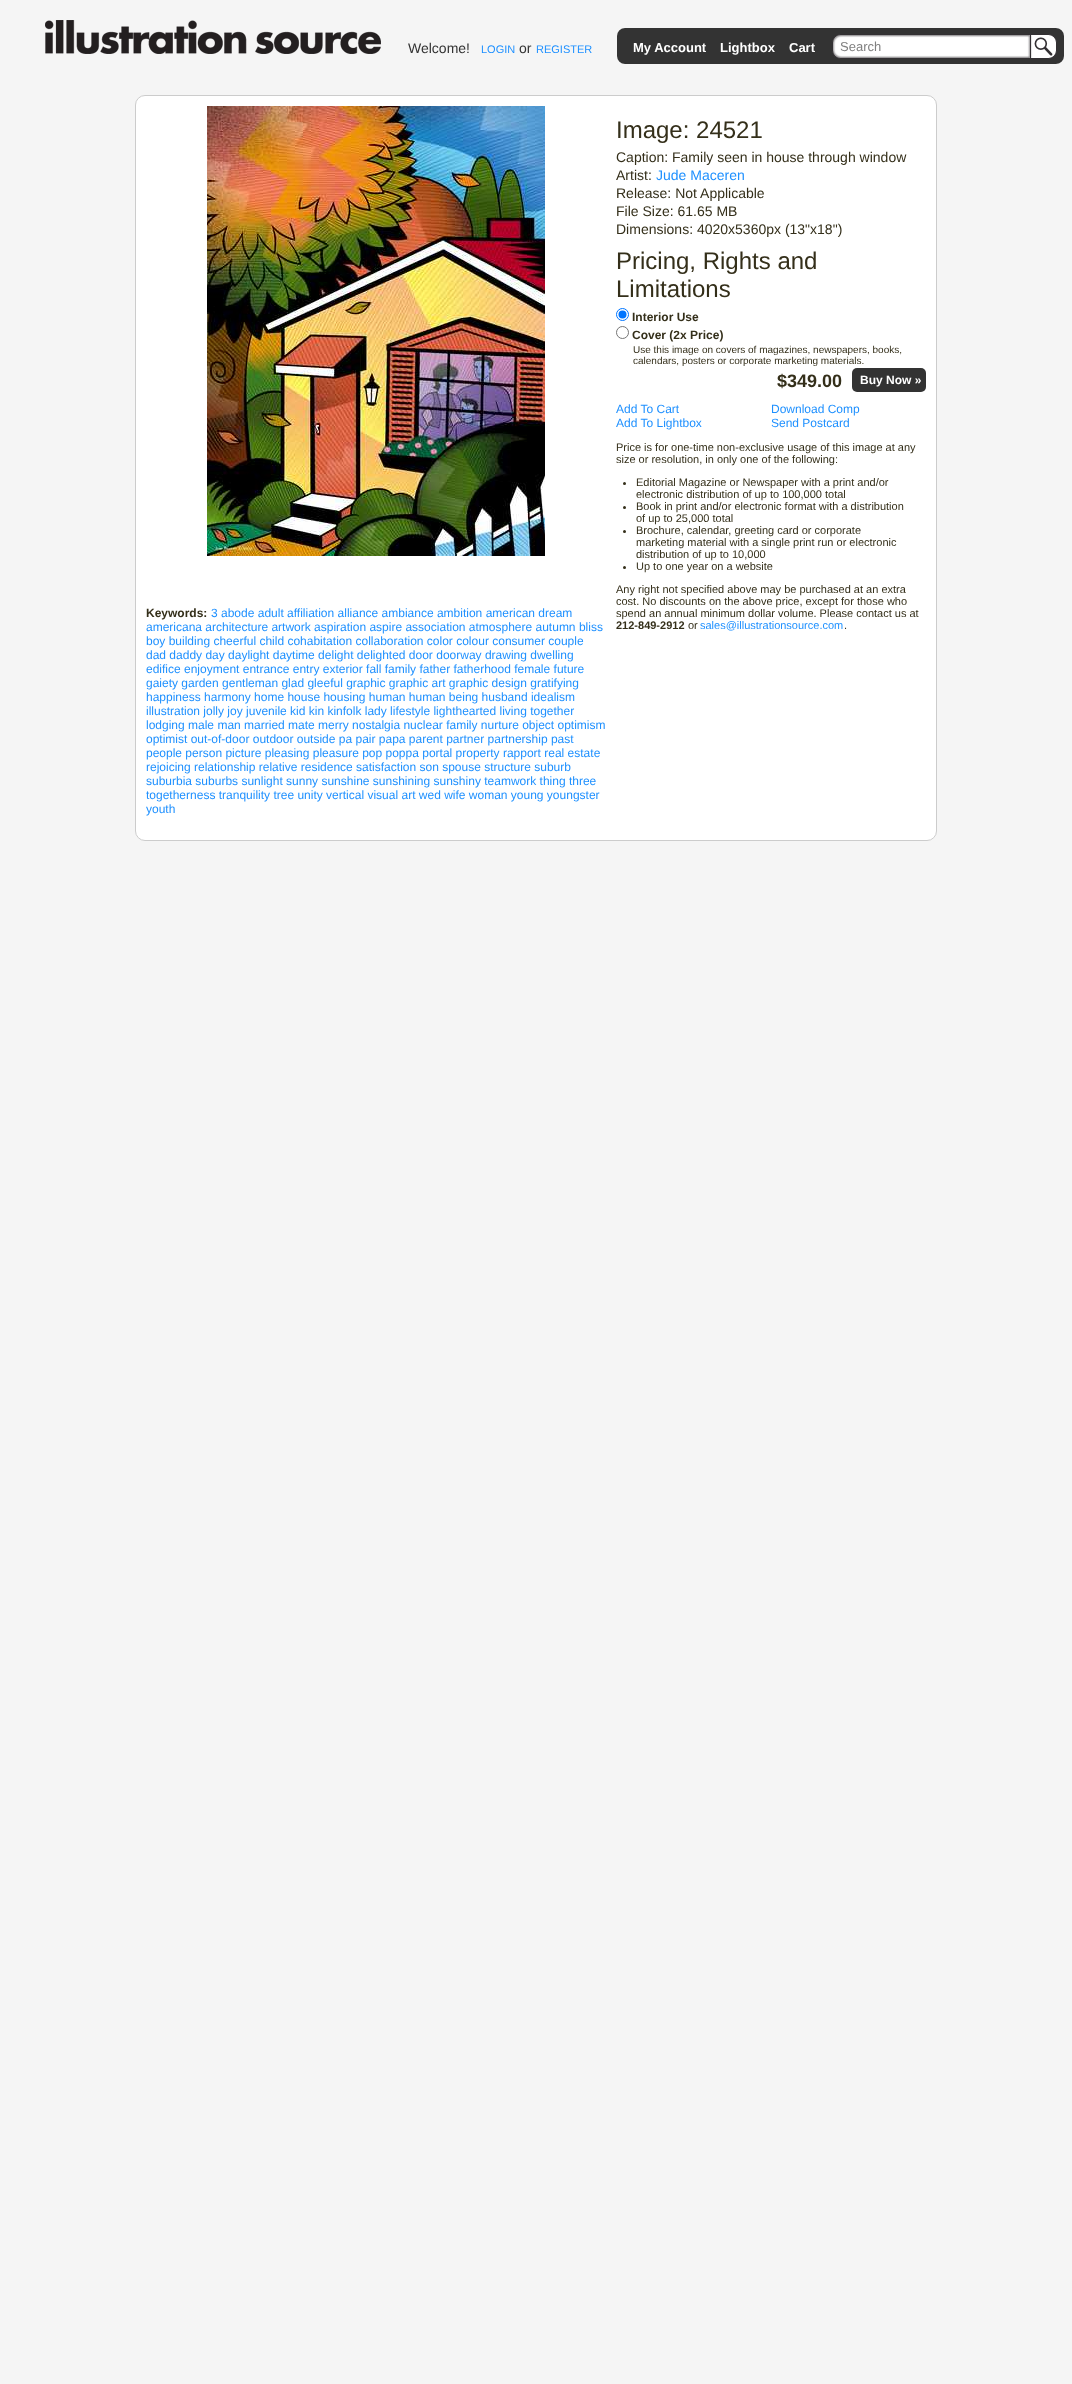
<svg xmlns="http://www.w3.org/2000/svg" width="1072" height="2384">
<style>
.a{font:14px Liberation Sans;fill:#333}
.b{font:11px Liberation Sans;fill:#1e90ff}
.c{font:bold 13px Liberation Sans;fill:#fff}
.d{font:13px Liberation Sans;fill:#808080}
.e{font:24px Liberation Sans;fill:#342f1a}
.f{font:14px Liberation Sans;fill:#342f1a}
.g{font:14px Liberation Sans;fill:#1e90ff}
.h{font:bold 12px Liberation Sans;fill:#342f1a}
.i{font:10px Liberation Sans;fill:#342f1a}
.j{font:bold 18px Liberation Sans;fill:#342f1a}
.k{font:bold 12px Liberation Sans;fill:#fff}
.l{font:12px Liberation Sans;fill:#1e90ff}
.m{font:11px Liberation Sans;fill:#342f1a}
.n{font:bold 11px Liberation Sans;fill:#342f1a}
</style>
<rect width="100%" height="100%" fill="#f5f5f5"/>
<image href="1.png" x="45" y="20" width="336" height="34"/>
<path fill="#333" d="M633 28h418v36H633z"/>
<image href="2.png" x="617" y="28" width="16" height="36"/>
<image href="4.png" x="1051" y="28" width="13" height="36"/>
<image href="3.png" x="832" y="34" width="225" height="25"/>
<rect fill="#fff" stroke="#ccc" x="135.5" y="95.5" width="801" height="745" rx="9.5"/>
<circle fill="none" stroke="#0075ff" cx="622.5" cy="314.5" r="6"/>
<circle fill="#0075ff" cx="622.5" cy="314.5" r="4"/>
<circle fill="none" stroke="#767676" cx="622.5" cy="332.5" r="6"/>
<rect fill="#333" x="852" y="368" width="74" height="24" rx="5"/>
<circle fill="#342f1a" cx="624.5" cy="483.5" r="1.5"/>
<circle fill="#342f1a" cx="624.5" cy="507.5" r="1.5"/>
<circle fill="#342f1a" cx="624.5" cy="531.5" r="1.5"/>
<circle fill="#342f1a" cx="624.5" cy="567.5" r="1.5"/>
<image href="5.png" x="207" y="106" width="338" height="450"/>
<text class="a" x="408" y="53">Welcome!</text>
<text class="b" x="481" y="53">LOGIN</text>
<text class="a" x="519" y="53">or</text>
<text class="b" x="536" y="53">REGISTER</text>
<text class="c" x="633" y="52">My Account</text>
<text class="c" x="720" y="52">Lightbox</text>
<text class="c" x="789" y="52">Cart</text>
<text class="d" x="840" y="51">Search</text>
<text class="e" x="616" y="138">Image: 24521</text>
<text class="f" x="616" y="162">Caption: Family seen in house through window</text>
<text class="f" x="616" y="180">Artist:</text>
<text class="g" x="656" y="180">Jude Maceren</text>
<text class="f" x="616" y="198">Release: Not Applicable</text>
<text class="f" x="616" y="216">File Size: 61.65 MB</text>
<text class="f" x="616" y="234">Dimensions: 4020x5360px (13"x18")</text>
<text class="e" x="616" y="269">Pricing, Rights and</text>
<text class="e" x="616" y="297">Limitations</text>
<text class="h" x="632" y="321">Interior Use</text>
<text class="h" x="632" y="339">Cover (2x Price)</text>
<text class="i" x="633" y="353">Use this image on covers of magazines, newspapers, books,</text>
<text class="i" x="633" y="364">calendars, posters or corporate marketing materials.</text>
<text class="j" x="777" y="387">$349.00</text>
<text class="k" x="860" y="384">Buy Now »</text>
<text class="l" x="616" y="413">Add To Cart</text>
<text class="l" x="771" y="413">Download Comp</text>
<text class="l" x="616" y="427">Add To Lightbox</text>
<text class="l" x="771" y="427">Send Postcard</text>
<text class="m" x="616" y="451">Price is for one-time non-exclusive usage of this image at any</text>
<text class="m" x="616" y="463">size or resolution, in only one of the following:</text>
<text class="m" x="636" y="486">Editorial Magazine or Newspaper with a print and/or</text>
<text class="m" x="636" y="498">electronic distribution of up to 100,000 total</text>
<text class="m" x="636" y="510">Book in print and/or electronic format with a distribution</text>
<text class="m" x="636" y="522">of up to 25,000 total</text>
<text class="m" x="636" y="534">Brochure, calendar, greeting card or corporate</text>
<text class="m" x="636" y="546">marketing material with a single print run or electronic</text>
<text class="m" x="636" y="558">distribution of up to 10,000</text>
<text class="m" x="636" y="570">Up to one year on a website</text>
<text class="m" x="616" y="593">Any right not specified above may be purchased at an extra</text>
<text class="m" x="616" y="605">cost. No discounts on the above price, except for those who</text>
<text class="m" x="616" y="617">spend an annual minimum dollar volume. Please contact us at</text>
<text class="n" x="616" y="629">212-849-2912</text>
<text class="m" x="688" y="629">or</text>
<text class="b" x="700" y="629">sales@illustrationsource.com</text>
<text class="m" x="844" y="629">.</text>
<text class="h" x="146" y="617">Keywords:</text>
<text class="l" x="211" y="617">3 abode adult affiliation alliance ambiance ambition american dream</text>
<text class="l" x="146" y="631">americana architecture artwork aspiration aspire association atmosphere autumn bliss</text>
<text class="l" x="146" y="645">boy building cheerful child cohabitation collaboration color colour consumer couple</text>
<text class="l" x="146" y="659">dad daddy day daylight daytime delight delighted door doorway drawing dwelling</text>
<text class="l" x="146" y="673">edifice enjoyment entrance entry exterior fall family father fatherhood female future</text>
<text class="l" x="146" y="687">gaiety garden gentleman glad gleeful graphic graphic art graphic design gratifying</text>
<text class="l" x="146" y="701">happiness harmony home house housing human human being husband idealism</text>
<text class="l" x="146" y="715">illustration jolly joy juvenile kid kin kinfolk lady lifestyle lighthearted living together</text>
<text class="l" x="146" y="729">lodging male man married mate merry nostalgia nuclear family nurture object optimism</text>
<text class="l" x="146" y="743">optimist out-of-door outdoor outside pa pair papa parent partner partnership past</text>
<text class="l" x="146" y="757">people person picture pleasing pleasure pop poppa portal property rapport real estate</text>
<text class="l" x="146" y="771">rejoicing relationship relative residence satisfaction son spouse structure suburb</text>
<text class="l" x="146" y="785">suburbia suburbs sunlight sunny sunshine sunshining sunshiny teamwork thing three</text>
<text class="l" x="146" y="799">togetherness tranquility tree unity vertical visual art wed wife woman young youngster</text>
<text class="l" x="146" y="813">youth</text>
</svg>
